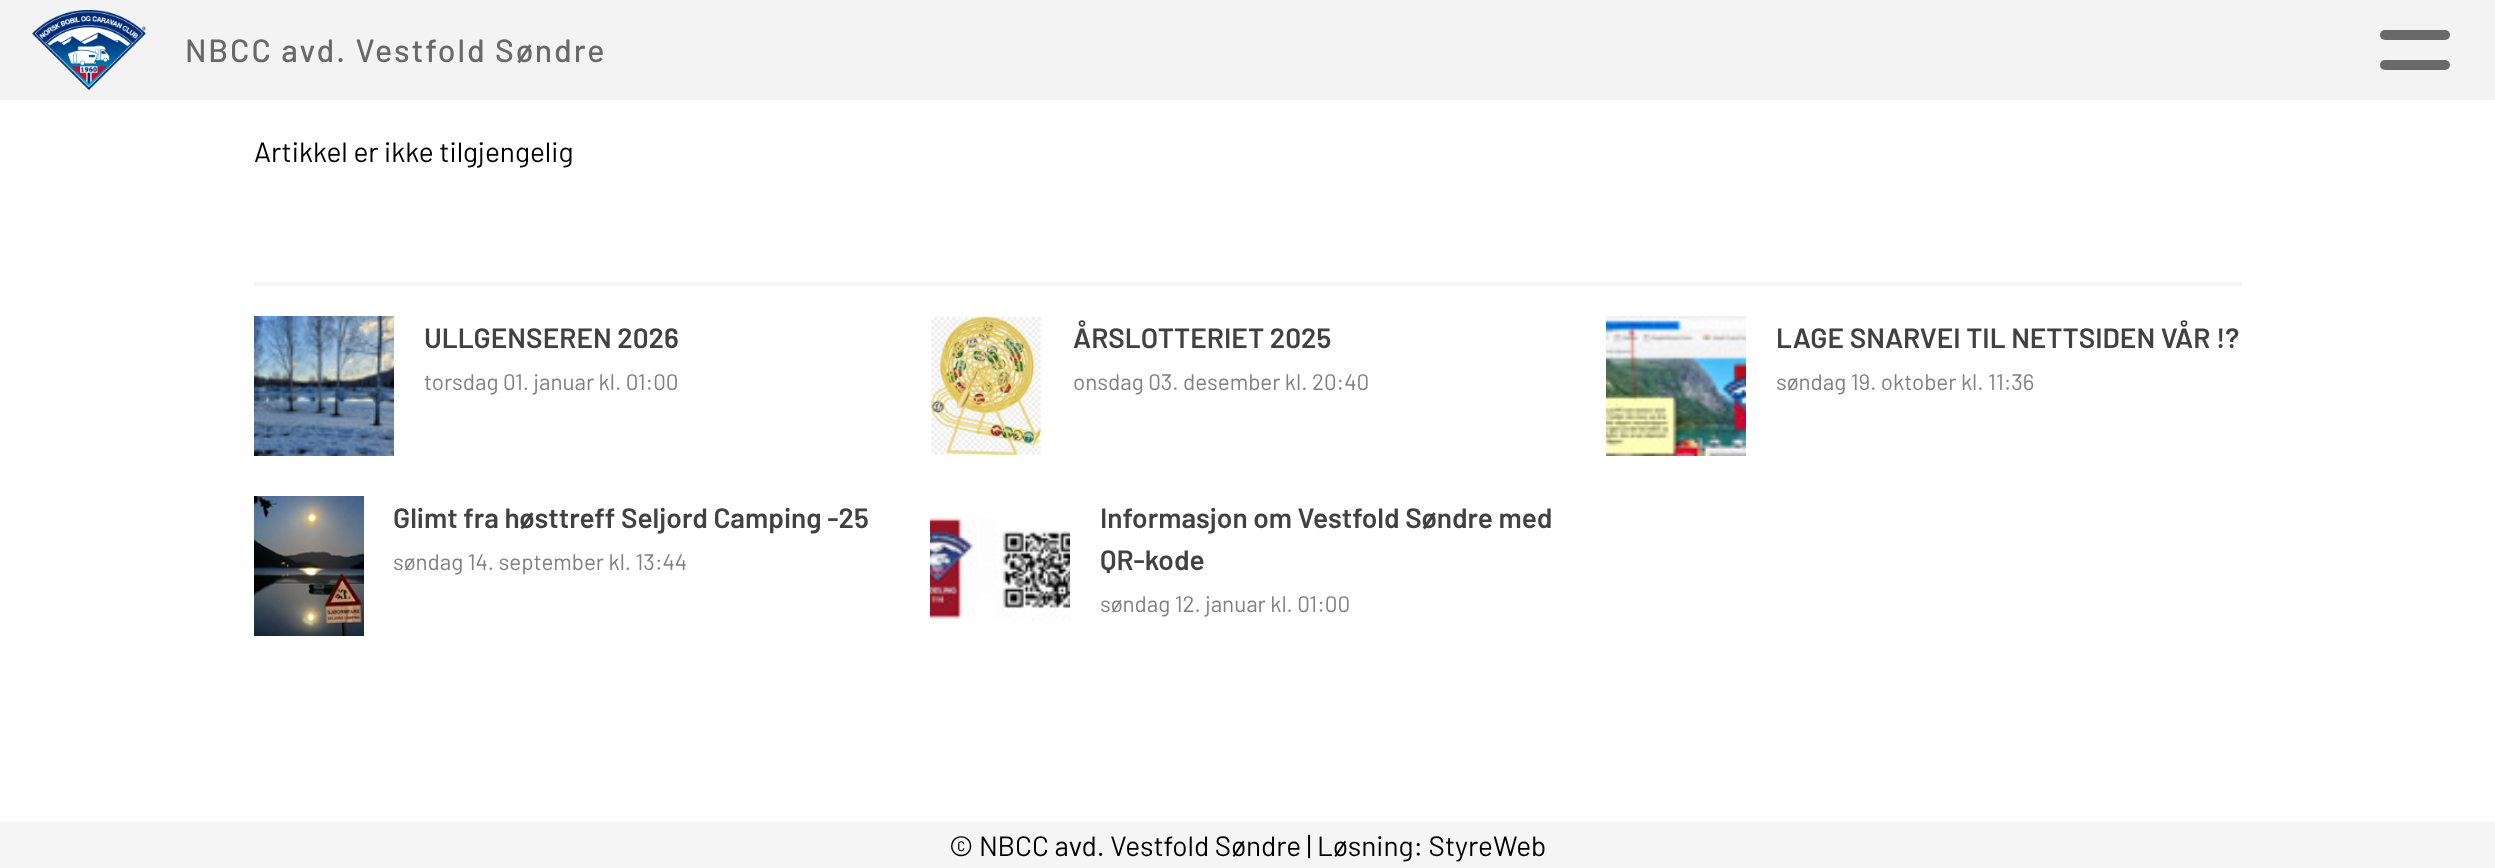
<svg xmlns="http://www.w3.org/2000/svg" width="2495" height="868">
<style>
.a{font:500 32px Barlow;letter-spacing:2px;fill:#696969}
.b{font:28px Barlow;fill:#000}
.c{font:600 28px Barlow;fill:#414141}
.d{font:22.4px Barlow;fill:#808080}
</style>
<rect width="100%" height="100%" fill="#fff"/>
<path fill="#f3f3f3" d="M0 0h2495v100H0z"/>
<image href="1.png" x="32" y="10" width="114" height="80"/>
<rect fill="#696969" x="2380" y="30" width="70" height="10" rx="5"/>
<rect fill="#696969" x="2380" y="60" width="70" height="10" rx="5"/>
<path fill="#f5f5f5" d="M254 282h1988v4H254z"/>
<image href="2.png" x="254" y="316" width="140" height="140"/>
<image href="3.png" x="930" y="316" width="112" height="140"/>
<image href="4.png" x="1606" y="316" width="140" height="140"/>
<image href="5.png" x="254" y="496" width="110" height="140"/>
<image href="6.png" x="930" y="517" width="140" height="104"/>
<path fill="#f5f5f5" d="M0 822h2495v46H0z"/>
<text class="a" x="185" y="62">NBCC avd. Vestfold Søndre</text>
<text class="b" x="254" y="162">Artikkel er ikke tilgjengelig</text>
<text class="c" x="424" y="348">ULLGENSEREN 2026</text>
<text class="d" x="424" y="390">torsdag 01. januar kl. 01:00</text>
<text class="c" x="1073" y="348">ÅRSLOTTERIET 2025</text>
<text class="d" x="1073" y="390">onsdag 03. desember kl. 20:40</text>
<text class="c" x="1776" y="348">LAGE SNARVEI TIL NETTSIDEN VÅR !?</text>
<text class="d" x="1776" y="390">søndag 19. oktober kl. 11:36</text>
<text class="c" x="393" y="528">Glimt fra høsttreff Seljord Camping -25</text>
<text class="d" x="393" y="570">søndag 14. september kl. 13:44</text>
<text class="c" x="1100" y="528">Informasjon om Vestfold Søndre med</text>
<text class="c" x="1100" y="570">QR-kode</text>
<text class="d" x="1100" y="612">søndag 12. januar kl. 01:00</text>
<text class="b" x="949" y="856">© NBCC avd. Vestfold Søndre | Løsning: StyreWeb</text>
</svg>
